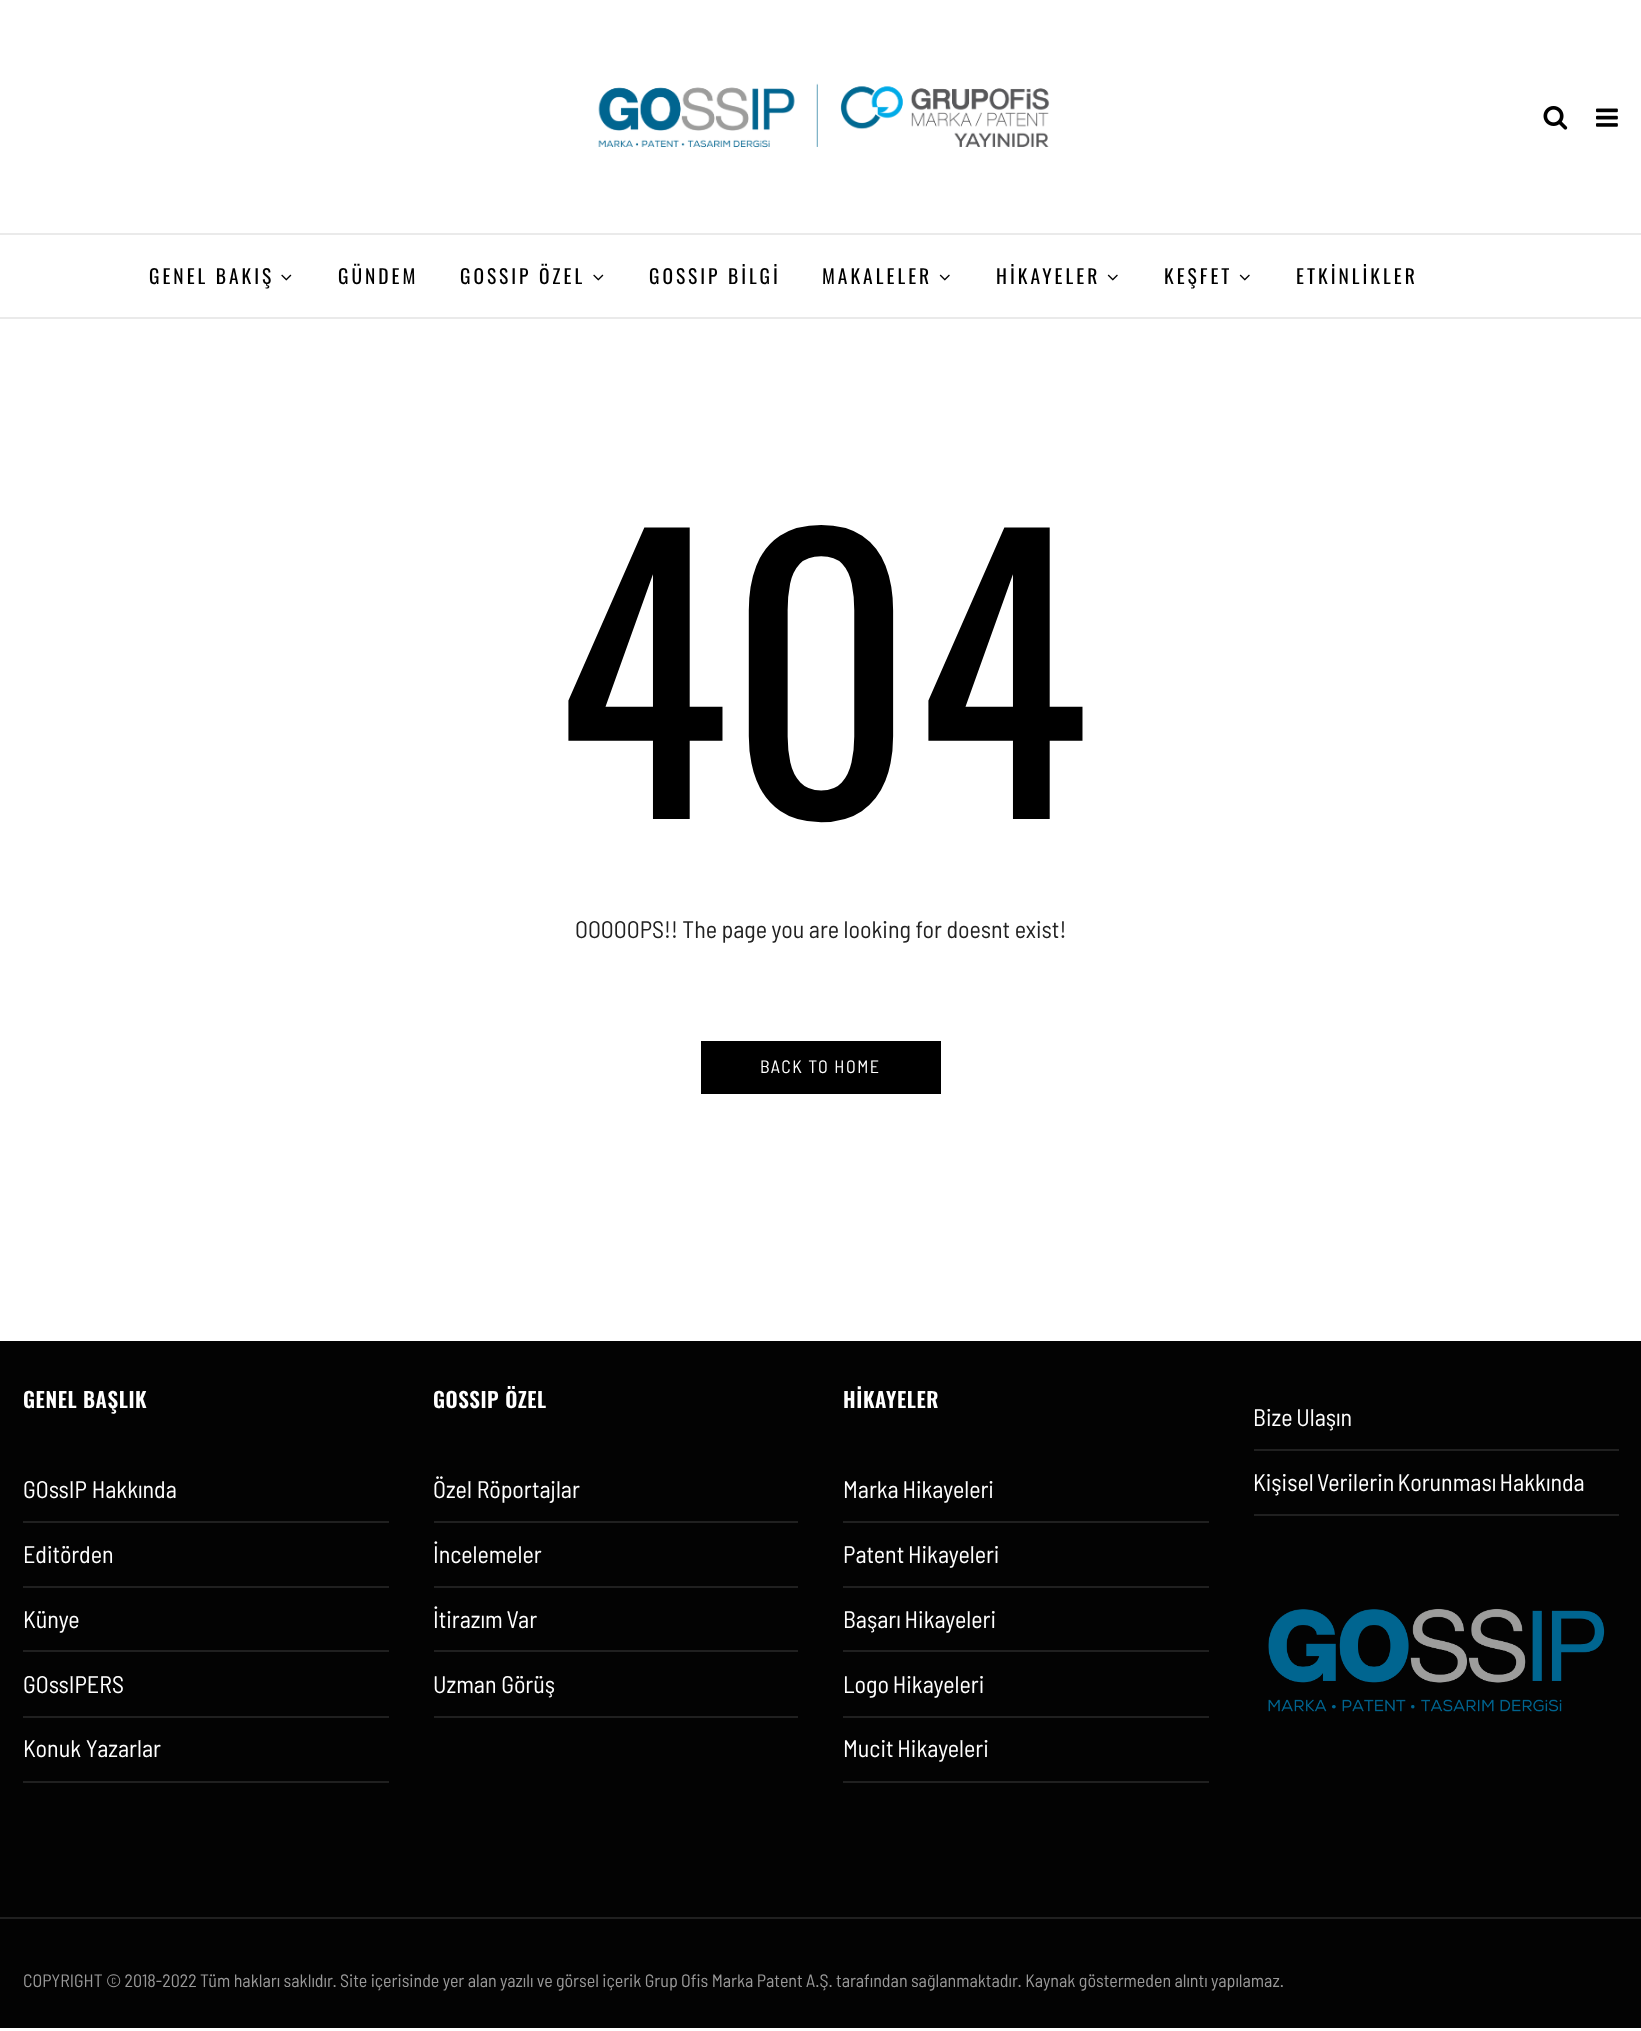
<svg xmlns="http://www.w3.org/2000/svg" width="1641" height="2031">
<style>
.a{font:19.5px Oswald;letter-spacing:3px;fill:#000}
.b{font:360px Oswald;fill:#000}
.c{font:24px Barlow Semi Condensed;fill:#222}
.d{font:18px Barlow Semi Condensed;letter-spacing:1.5px;fill:#fff}
.e{font:600 21px Oswald;letter-spacing:0.6px;fill:#fff}
.f{font:24px Barlow Semi Condensed;fill:#fff}
.g{font:18px Barlow Semi Condensed;fill:#999}
</style>
<rect width="100%" height="100%" fill="#fff"/>
<image href="1.png" x="598" y="83" width="452" height="65"/>
<image href="2.png" x="1543" y="106" width="25" height="24"/>
<image href="3.png" x="1596" y="108" width="22" height="19"/>
<path fill="#eaeaea" d="M0 233h1641v2H0z"/>
<path fill="#eaeaea" d="M0 317h1641v2H0z"/>
<image href="4.png" x="281" y="274" width="11" height="7"/>
<image href="4.png" x="593" y="274" width="11" height="7"/>
<image href="5.png" x="939" y="274" width="11" height="7"/>
<image href="5.png" x="1107" y="274" width="11" height="7"/>
<image href="5.png" x="1239" y="274" width="11" height="7"/>
<path fill="#000" d="M701 1041h240v53H701z"/>
<path fill="#030303" d="M0 1341h1641v687H0z"/>
<path fill="#202020" d="M23 1521h366v2H23z"/>
<path fill="#202020" d="M23 1586h366v2H23z"/>
<path fill="#202020" d="M23 1650h366v2H23z"/>
<path fill="#202020" d="M23 1716h366v2H23z"/>
<path fill="#202020" d="M23 1781h366v2H23z"/>
<path fill="#202020" d="M434 1521h364v2H434z"/>
<path fill="#202020" d="M434 1586h364v2H434z"/>
<path fill="#202020" d="M434 1650h364v2H434z"/>
<path fill="#202020" d="M434 1716h364v2H434z"/>
<path fill="#202020" d="M843 1521h366v2H843z"/>
<path fill="#202020" d="M843 1586h366v2H843z"/>
<path fill="#202020" d="M843 1650h366v2H843z"/>
<path fill="#202020" d="M843 1716h366v2H843z"/>
<path fill="#202020" d="M843 1781h366v2H843z"/>
<path fill="#202020" d="M1254 1449h365v2H1254z"/>
<path fill="#202020" d="M1254 1514h365v2H1254z"/>
<image href="6.png" x="1268" y="1608" width="337" height="104"/>
<path fill="#202020" d="M0 1917h1641v2H0z"/>
<text class="a" x="149" y="284">GENEL BAKIŞ</text>
<text class="a" x="338" y="284">GÜNDEM</text>
<text class="a" x="460" y="284">GOSSIP ÖZEL</text>
<text class="a" x="649" y="284">GOSSIP BİLGİ</text>
<text class="a" x="822" y="284">MAKALELER</text>
<text class="a" x="996" y="284">HİKAYELER</text>
<text class="a" x="1164" y="284">KEŞFET</text>
<text class="a" x="1296" y="284">ETKİNLİKLER</text>
<text class="b" x="554" y="819">404</text>
<text class="c" x="575" y="938" word-spacing="-0.25">OOOOOPS!! The page you are looking for doesnt exist!</text>
<text class="d" x="760" y="1073">BACK TO HOME</text>
<text class="e" x="23" y="1408">GENEL BAŞLIK</text>
<text class="f" x="23" y="1498">GOssIP Hakkında</text>
<text class="f" x="23" y="1563">Editörden</text>
<text class="f" x="23" y="1628">Künye</text>
<text class="f" x="23" y="1693">GOssIPERS</text>
<text class="f" x="23" y="1757">Konuk Yazarlar</text>
<text class="e" x="433" y="1408">GOSSIP ÖZEL</text>
<text class="f" x="433" y="1498">Özel Röportajlar</text>
<text class="f" x="433" y="1563">İncelemeler</text>
<text class="f" x="433" y="1628" word-spacing="-1">İtirazım Var</text>
<text class="f" x="433" y="1693">Uzman Görüş</text>
<text class="e" x="843" y="1408">HİKAYELER</text>
<text class="f" x="843" y="1498" word-spacing="-1">Marka Hikayeleri</text>
<text class="f" x="843" y="1563" word-spacing="-1">Patent Hikayeleri</text>
<text class="f" x="843" y="1628" word-spacing="-1">Başarı Hikayeleri</text>
<text class="f" x="843" y="1693" word-spacing="-1">Logo Hikayeleri</text>
<text class="f" x="843" y="1757" word-spacing="-1">Mucit Hikayeleri</text>
<text class="f" x="1253" y="1426" word-spacing="-1">Bize Ulaşın</text>
<text class="f" x="1253" y="1491" word-spacing="-1.5">Kişisel Verilerin Korunması Hakkında</text>
<text class="g" x="23" y="1987" word-spacing="-0.25">COPYRIGHT © 2018-2022 Tüm hakları saklıdır. Site içerisinde yer alan yazılı ve görsel içerik Grup Ofis Marka Patent A.Ş. tarafından sağlanmaktadır. Kaynak göstermeden alıntı yapılamaz.</text>
</svg>
